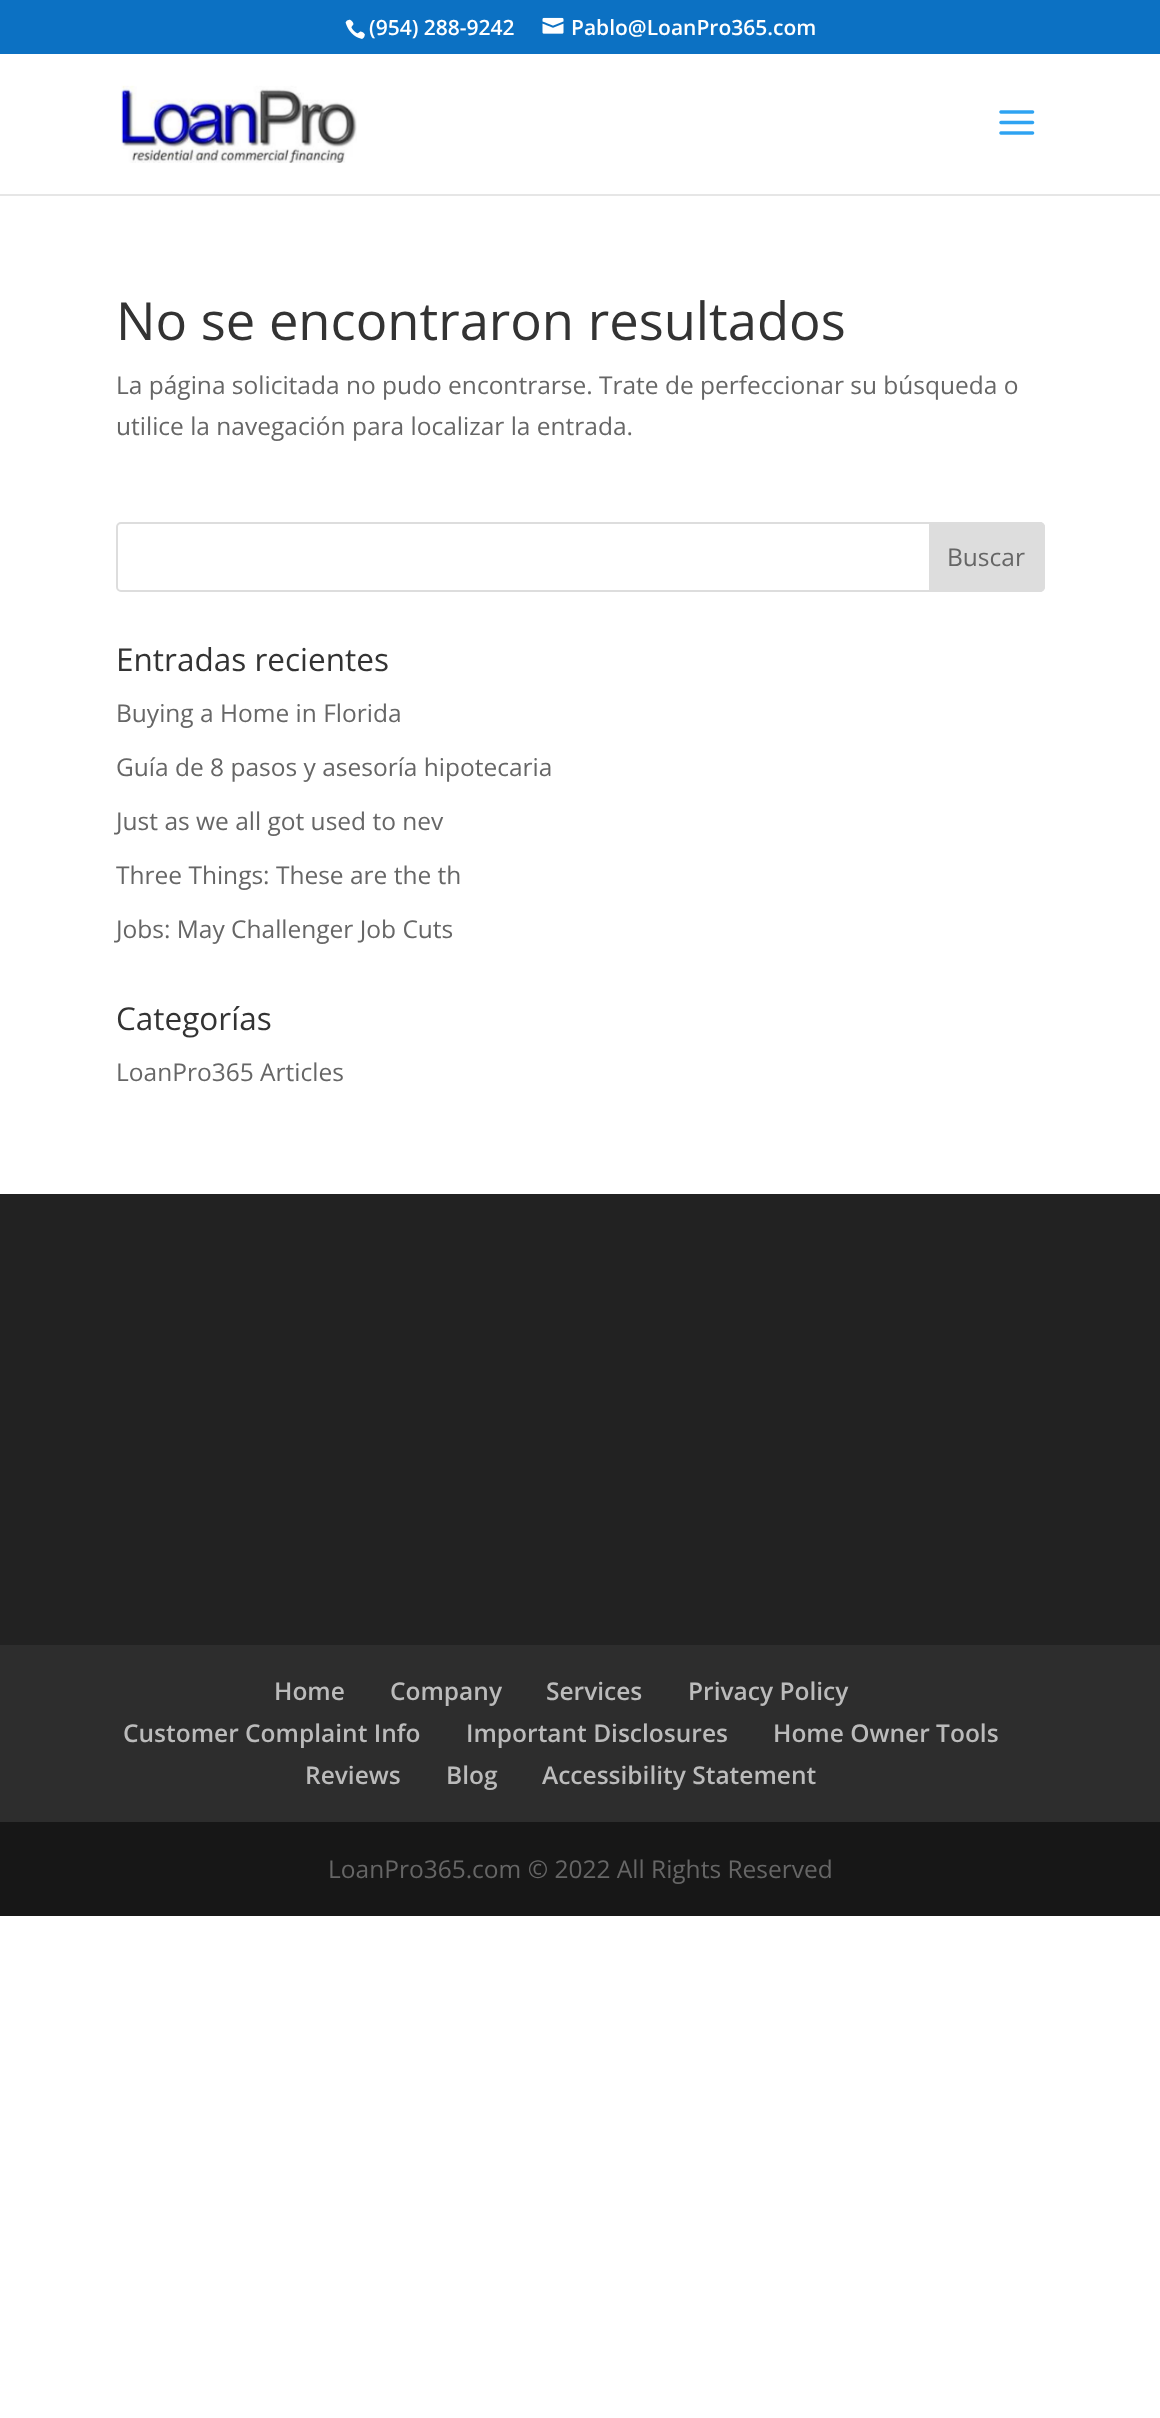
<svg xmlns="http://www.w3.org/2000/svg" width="1160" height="2418">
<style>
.a{font:600 21px Open Sans;fill:#fff}
.b{font:52.5px Open Sans;fill:#333}
.c{font:24.5px Open Sans;fill:#666}
.d{font:31.5px Open Sans;fill:#333}
.e{font:600 24.5px Open Sans;fill:#bbb}
</style>
<rect width="100%" height="100%" fill="#fff"/>
<path fill="#0c71c3" d="M0 0h1160v54H0z"/>
<image href="1.png" x="345" y="19" width="20" height="20"/>
<image href="2.png" x="542" y="17" width="22" height="17"/>
<path fill="#e6e6e6" d="M0 194h1160v2H0z"/>
<image href="3.png" x="121" y="85" width="236" height="78"/>
<image href="4.png" x="999" y="110" width="36" height="25"/>
<rect fill="none" stroke="#ddd" stroke-width="2" x="117" y="523" width="927" height="68" rx="4"/>
<path fill="#ddd" stroke="#ddd" stroke-width="2" d="M930 523h110c2 0 4 2 4 4v60c0 2-2 4-4 4h-110z"/>
<path fill="#222" d="M0 1194h1160v451H0z"/>
<path fill="#2d2d2d" d="M0 1645h1160v177H0z"/>
<path fill="#171717" d="M0 1822h1160v94H0z"/>
<text class="a" x="369" y="35">(954) 288-9242</text>
<text class="a" x="571" y="35">Pablo@LoanPro365.com</text>
<text class="b" x="116" y="340">No se encontraron resultados</text>
<text class="c" x="116" y="394">La página solicitada no pudo encontrarse. Trate de perfeccionar su búsqueda o</text>
<text class="c" x="116" y="435">utilice la navegación para localizar la entrada.</text>
<text class="c" x="947" y="566">Buscar</text>
<text class="d" x="116" y="671">Entradas recientes</text>
<text class="c" x="116" y="722">Buying a Home in Florida</text>
<text class="c" x="116" y="776">Guía de 8 pasos y asesoría hipotecaria</text>
<text class="c" x="116" y="830">Just as we all got used to nev</text>
<text class="c" x="116" y="884">Three Things: These are the th</text>
<text class="c" x="116" y="938">Jobs: May Challenger Job Cuts</text>
<text class="d" x="116" y="1030">Categorías</text>
<text class="c" x="116" y="1081">LoanPro365 Articles</text>
<text class="e" x="274" y="1700">Home</text>
<text class="e" x="390" y="1700">Company</text>
<text class="e" x="546" y="1700">Services</text>
<text class="e" x="688" y="1700">Privacy Policy</text>
<text class="e" x="123" y="1742">Customer Complaint Info</text>
<text class="e" x="466" y="1742">Important Disclosures</text>
<text class="e" x="773" y="1742">Home Owner Tools</text>
<text class="e" x="305" y="1784">Reviews</text>
<text class="e" x="446" y="1784">Blog</text>
<text class="e" x="542" y="1784">Accessibility Statement</text>
<text class="c" x="328" y="1878">LoanPro365.com © 2022 All Rights Reserved</text>
</svg>
